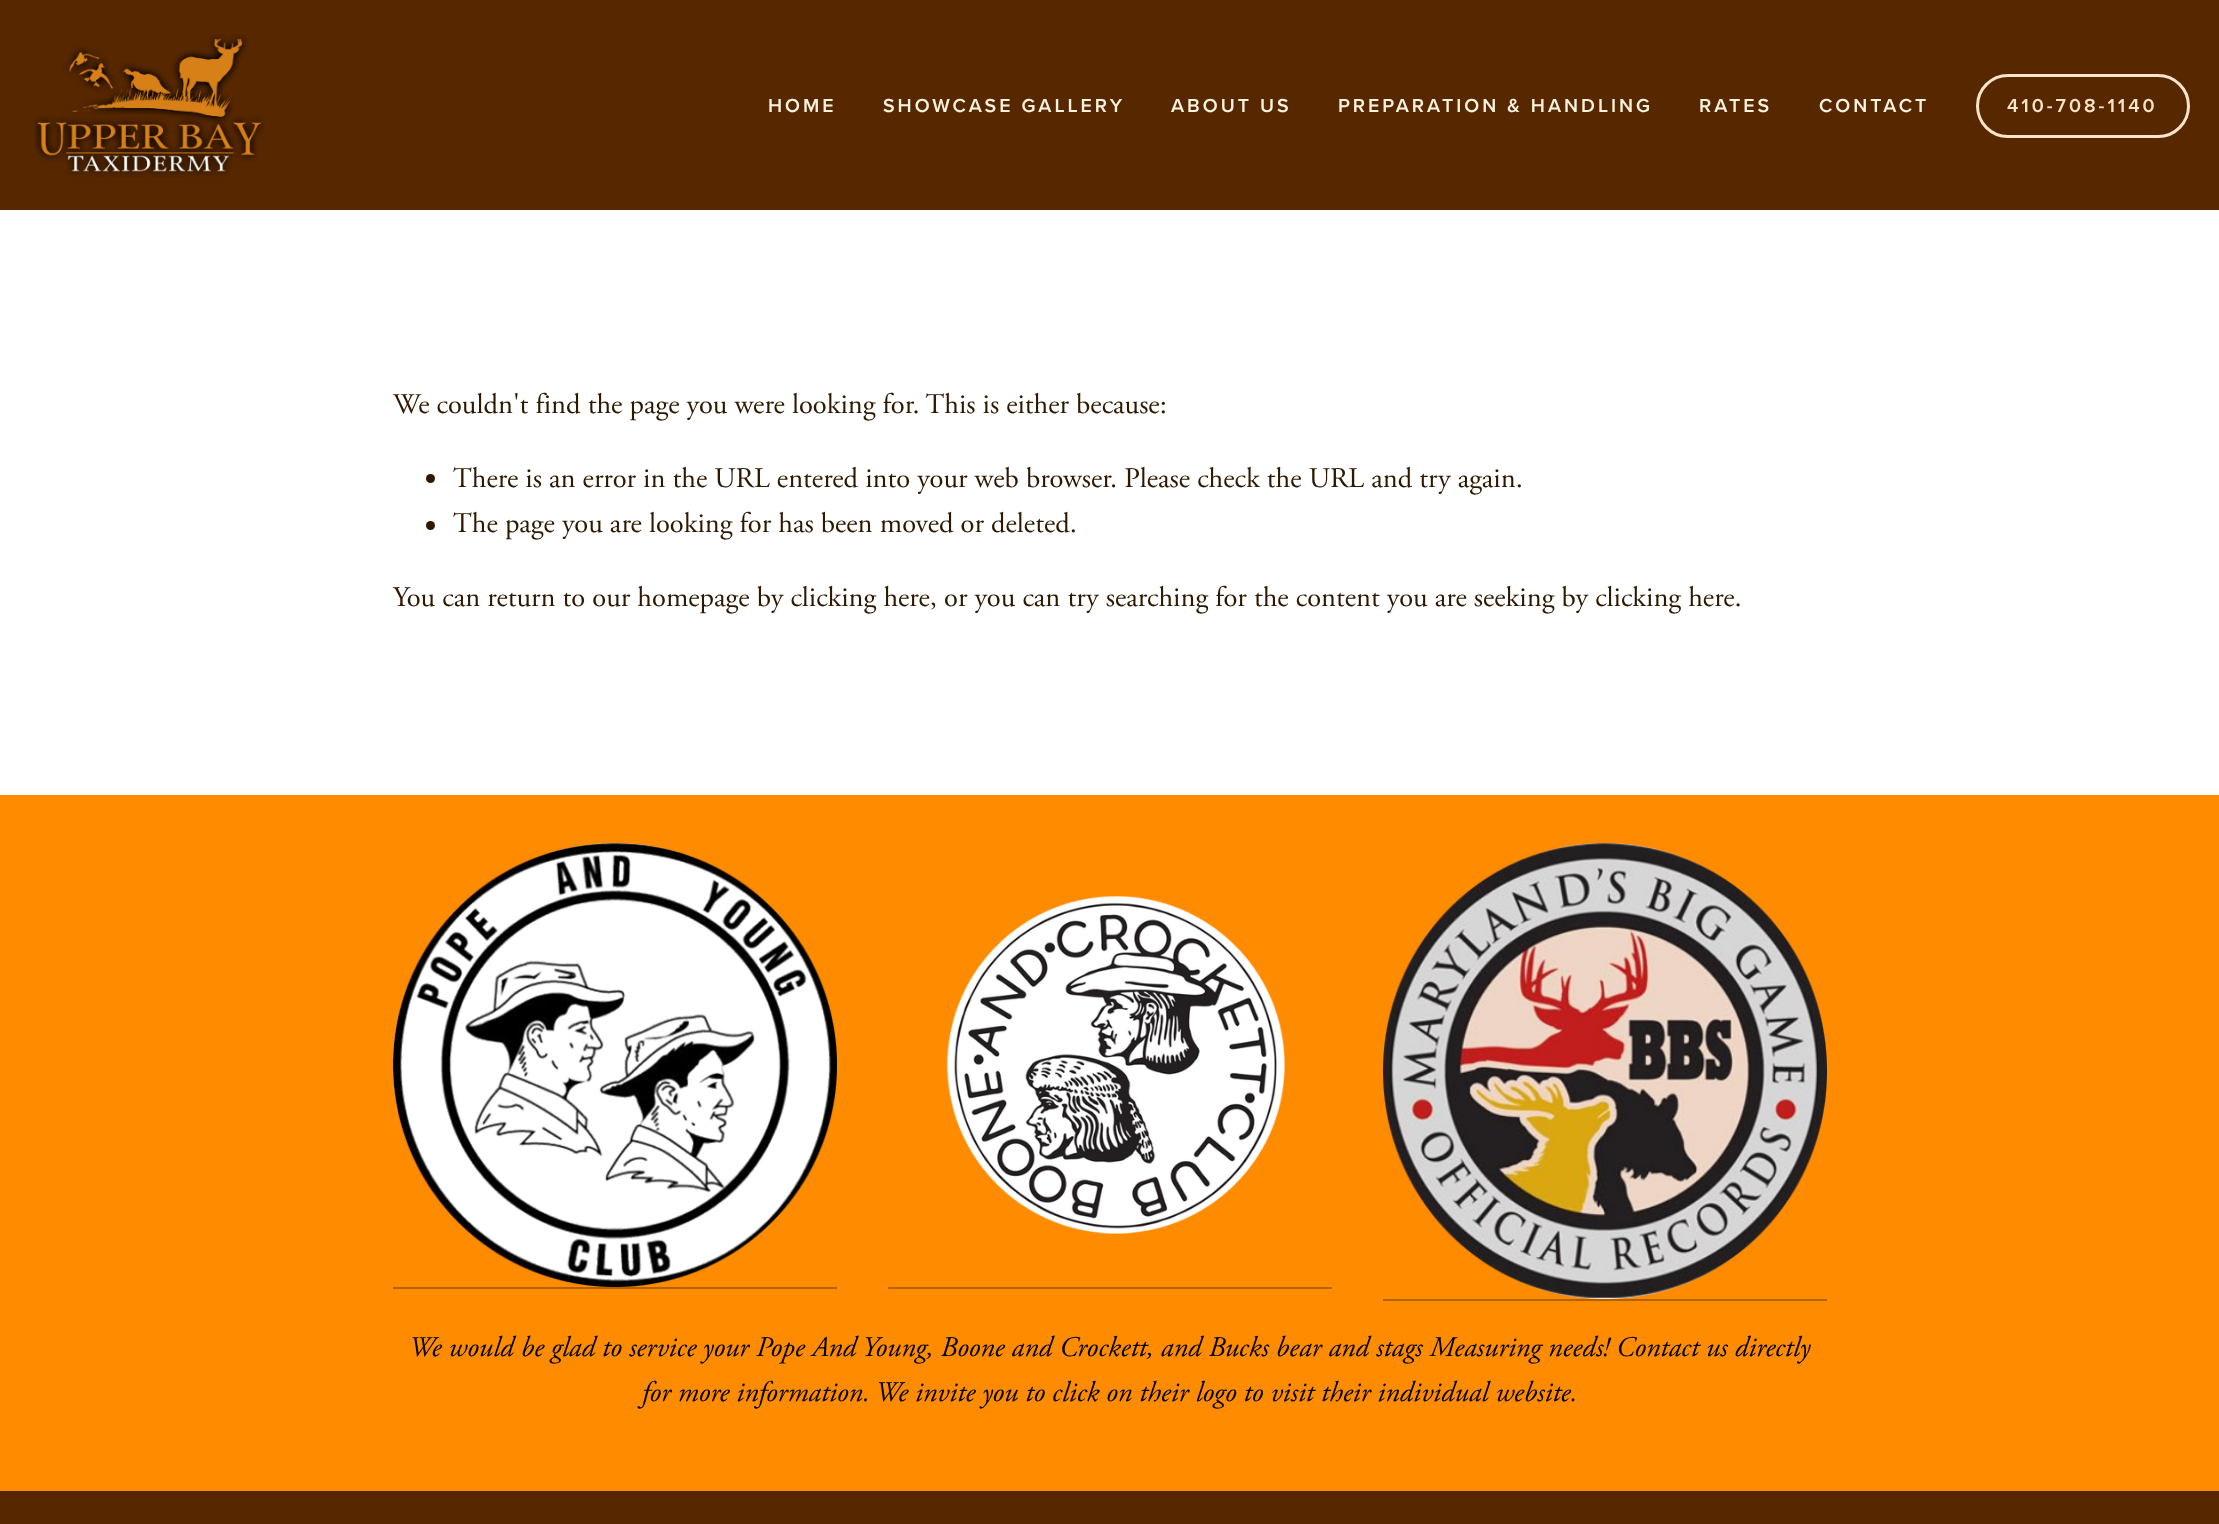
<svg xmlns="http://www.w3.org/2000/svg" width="2219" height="1524">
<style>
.a{font:600 19.5px Proxima Nova;letter-spacing:3px;fill:#fff3e0}
.b{font:600 19.5px Proxima Nova;letter-spacing:3px;fill:#ffe4cc}
.c{font:28.5px Adobe Garamond;fill:#2e1900}
.d{font:italic 28.5px Adobe Garamond;fill:#000}
</style>
<rect width="100%" height="100%" fill="#fff"/>
<path fill="#572800" d="M0 0h2219v210H0z"/>
<image href="1.png" x="34" y="34" width="231" height="143"/>
<rect fill="none" stroke="#ffe4cc" stroke-width="3" x="1977.5" y="75.5" width="211" height="61" rx="30.5"/>
<circle fill="#2e1900" cx="430.5" cy="478.5" r="4.5"/>
<circle fill="#2e1900" cx="430.5" cy="525.5" r="4.5"/>
<path fill="#ff8c00" d="M0 795h2219v696H0z"/>
<path fill="#b36200" d="M393 1287h444v2H393z"/>
<image href="2.png" x="393" y="843" width="444" height="444"/>
<path fill="#b36200" d="M888 1287h444v2H888z"/>
<image href="3.png" x="946" y="896" width="339" height="338"/>
<path fill="#b36200" d="M1383 1299h444v2H1383z"/>
<image href="4.png" x="1383" y="843" width="444" height="456"/>
<path fill="#572800" d="M0 1491h2219v33H0z"/>
<text class="a" x="768" y="112">HOME</text>
<text class="a" x="883" y="112">SHOWCASE GALLERY</text>
<text class="a" x="1171" y="112">ABOUT US</text>
<text class="a" x="1338" y="112">PREPARATION &amp; HANDLING</text>
<text class="a" x="1699" y="112">RATES</text>
<text class="a" x="1819" y="112">CONTACT</text>
<text class="b" x="2007" y="112">410-708-1140</text>
<text class="c" x="393" y="413">We couldn't find the page you were looking for. This is either because:</text>
<text class="c" x="453" y="487">There is an error in the URL entered into your web browser. Please check the URL and try again.</text>
<text class="c" x="453" y="532">The page you are looking for has been moved or deleted.</text>
<text class="c" x="393" y="606">You can return to our homepage by clicking here, or you can try searching for the content you are seeking by clicking here.</text>
<text class="d" x="409" y="1356">We would be glad to service your Pope And Young, Boone and Crockett, and Bucks bear and stags Measuring needs! Contact us directly</text>
<text class="d" x="642" y="1401">for more information. We invite you to click on their logo to visit their individual website.</text>
</svg>
